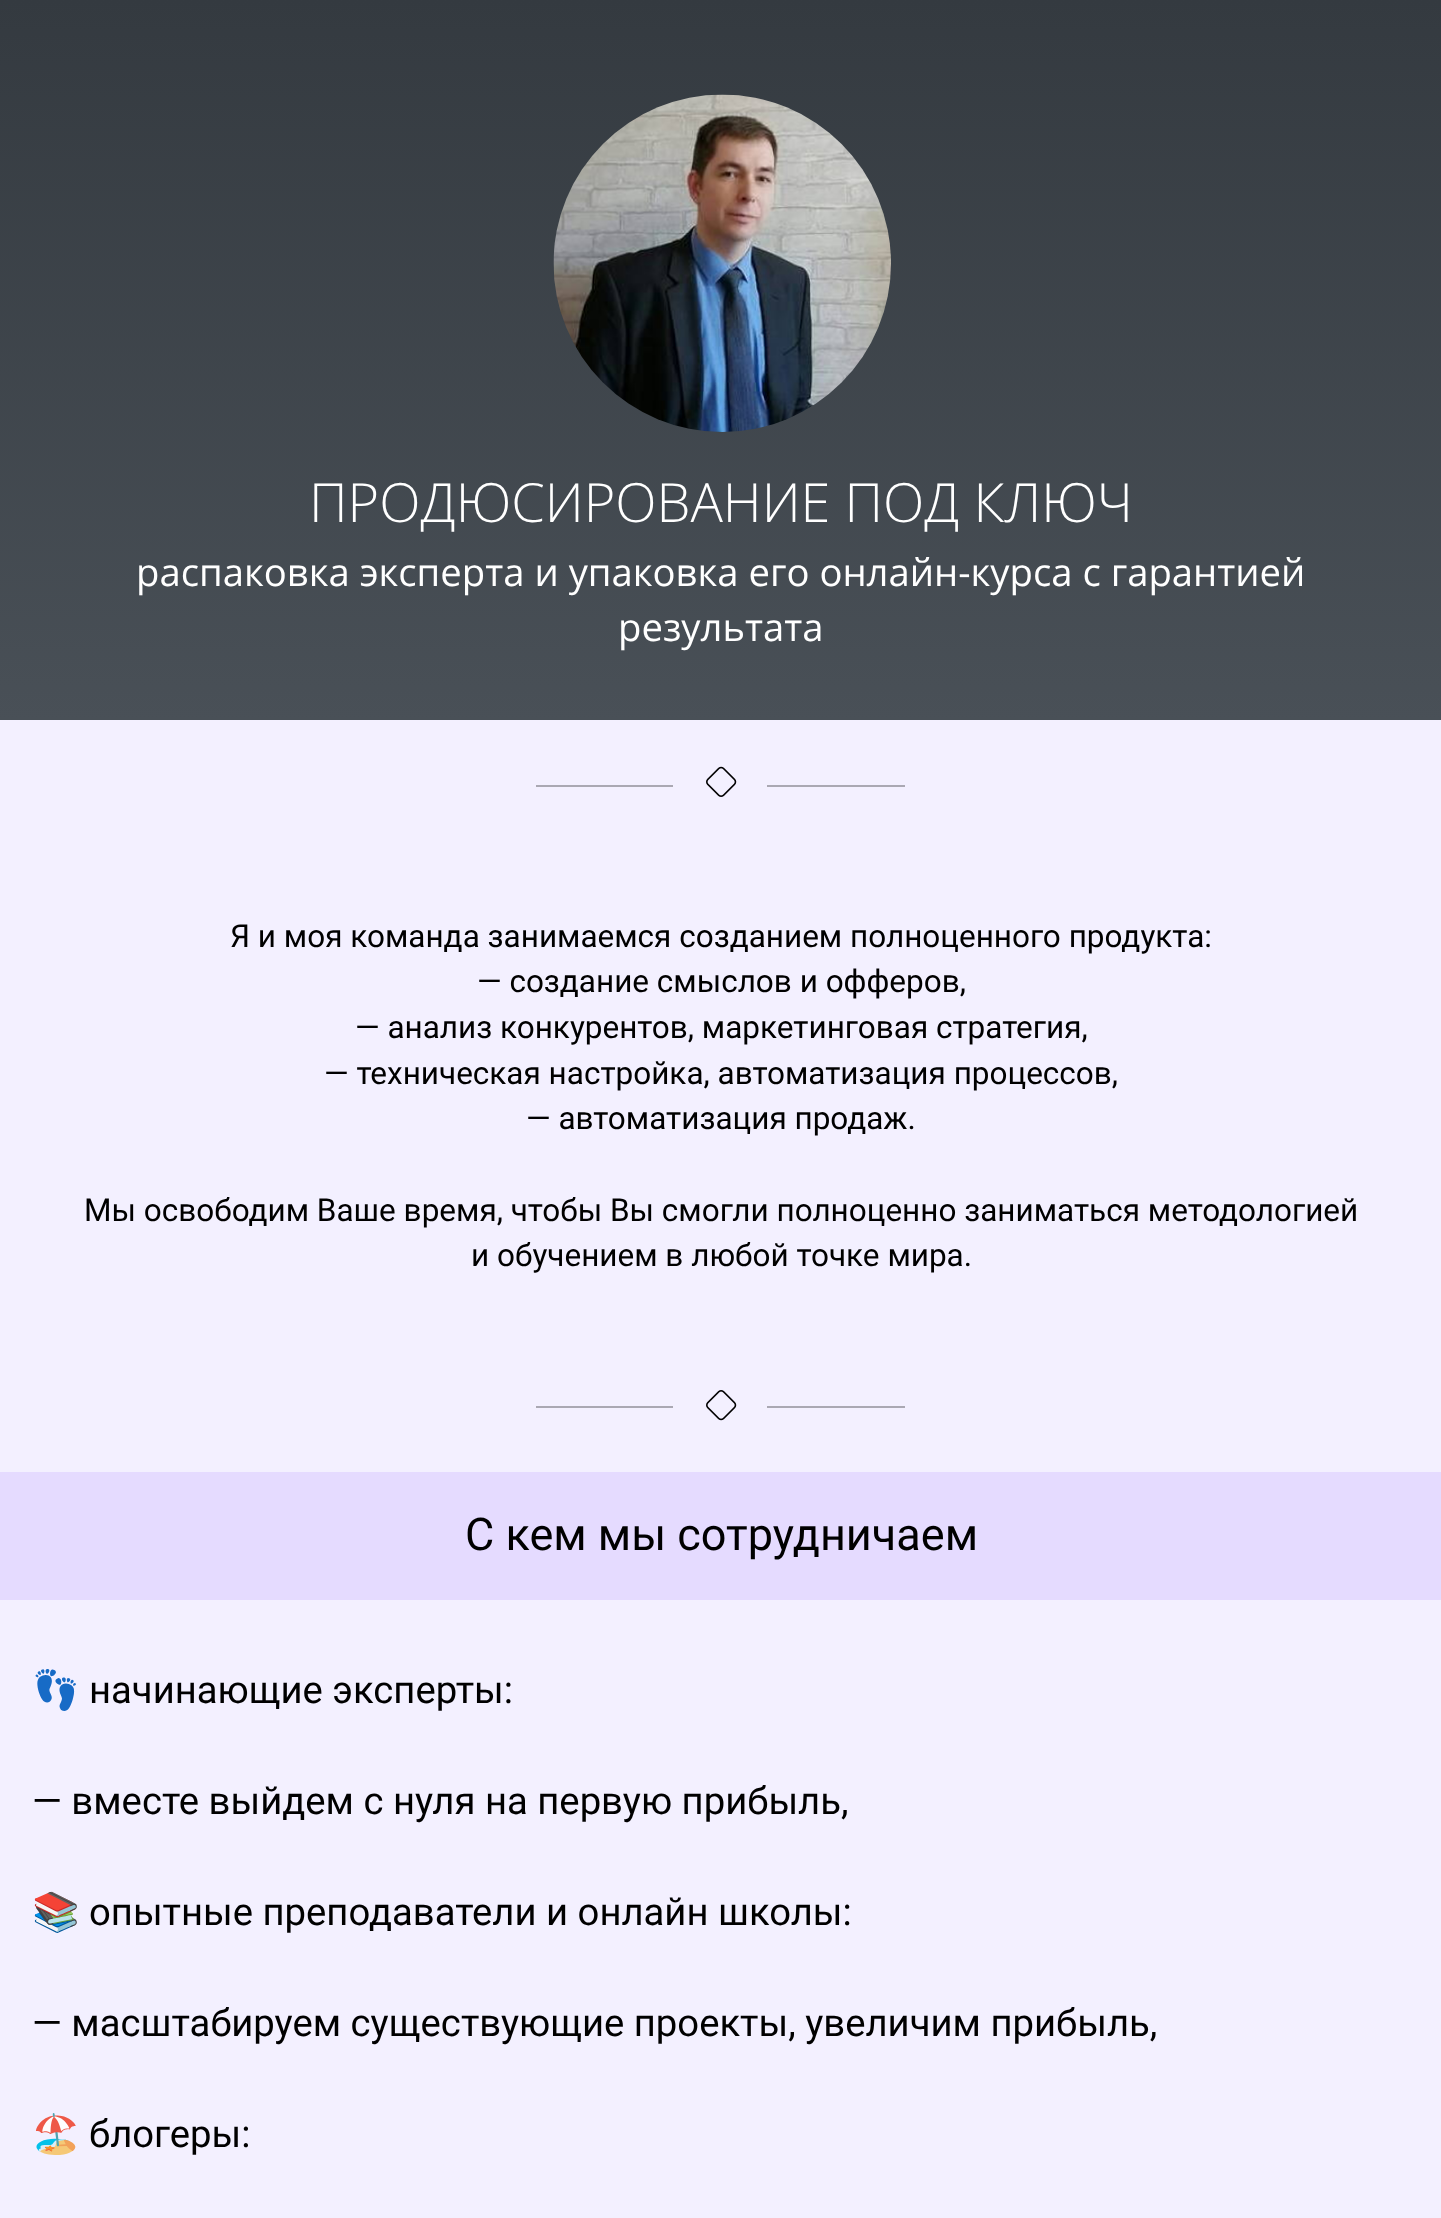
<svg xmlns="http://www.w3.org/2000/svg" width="1441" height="2218">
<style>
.a{font:300 54px Open Sans;fill:#fff}
.b{font:38.25px Open Sans;fill:#fff}
.c{font:31.5px Roboto;fill:#000}
.d{font:45px Roboto;fill:#000}
.e{font:38.25px Noto Color Emoji;fill:#000}
.f{font:38.25px Roboto;fill:#000}
</style>
<defs>
<linearGradient id="g1" gradientUnits="userSpaceOnUse" x1="721" y1="0" x2="721" y2="720"><stop offset="0" stop-color="#343a40"/><stop offset="1" stop-color="#495057"/></linearGradient>
</defs>
<rect width="100%" height="100%" fill="#fff"/>
<path fill="url(#g1)" d="M0 0h1441v720H0z"/>
<image href="1.png" x="553" y="94" width="338" height="338"/>
<path fill="#f3f0ff" d="M0 720h1441v752H0z"/>
<path fill="#aaa8b3" d="M536 785h137v2H536z"/>
<image href="2.png" x="706" y="766" width="31" height="31"/>
<path fill="#aaa8b3" d="M767 785h138v2H767z"/>
<path fill="#aaa8b3" d="M536 1406h137v2H536z"/>
<image href="3.png" x="706" y="1390" width="31" height="31"/>
<path fill="#aaa8b3" d="M767 1406h138v2H767z"/>
<path fill="#e5dbff" d="M0 1472h1441v128H0z"/>
<path fill="#f3f0ff" d="M0 1600h1441v618H0z"/>
<text class="a" x="309" y="522">ПРОДЮСИРОВАНИЕ ПОД КЛЮЧ</text>
<text class="b" x="136" y="586">распаковка эксперта и упаковка его онлайн-курса с гарантией</text>
<text class="b" x="618" y="641">результата</text>
<text class="c" x="230" y="947">Я и моя команда занимаемся созданием полноценного продукта:</text>
<text class="c" x="477" y="992">— создание смыслов и офферов,</text>
<text class="c" x="355" y="1038">— анализ конкурентов, маркетинговая стратегия,</text>
<text class="c" x="324" y="1084">— техническая настройка, автоматизация процессов,</text>
<text class="c" x="526" y="1129">— автоматизация продаж.</text>
<text class="c" x="84" y="1221">Мы освободим Ваше время, чтобы Вы смогли полноценно заниматься методологией</text>
<text class="c" x="471" y="1266">и обучением в любой точке мира.</text>
<text class="d" x="465" y="1550">С кем мы сотрудничаем</text>
<text class="e" x="32" y="1703">👣</text>
<text class="f" x="89" y="1703">начинающие эксперты:</text>
<text class="f" x="32" y="1814">— вместе выйдем с нуля на первую прибыль,</text>
<text class="e" x="32" y="1925">📚</text>
<text class="f" x="89" y="1925">опытные преподаватели и онлайн школы:</text>
<text class="f" x="32" y="2036">— масштабируем существующие проекты, увеличим прибыль,</text>
<text class="e" x="32" y="2147">🏖️</text>
<text class="f" x="89" y="2147">блогеры:</text>
</svg>
